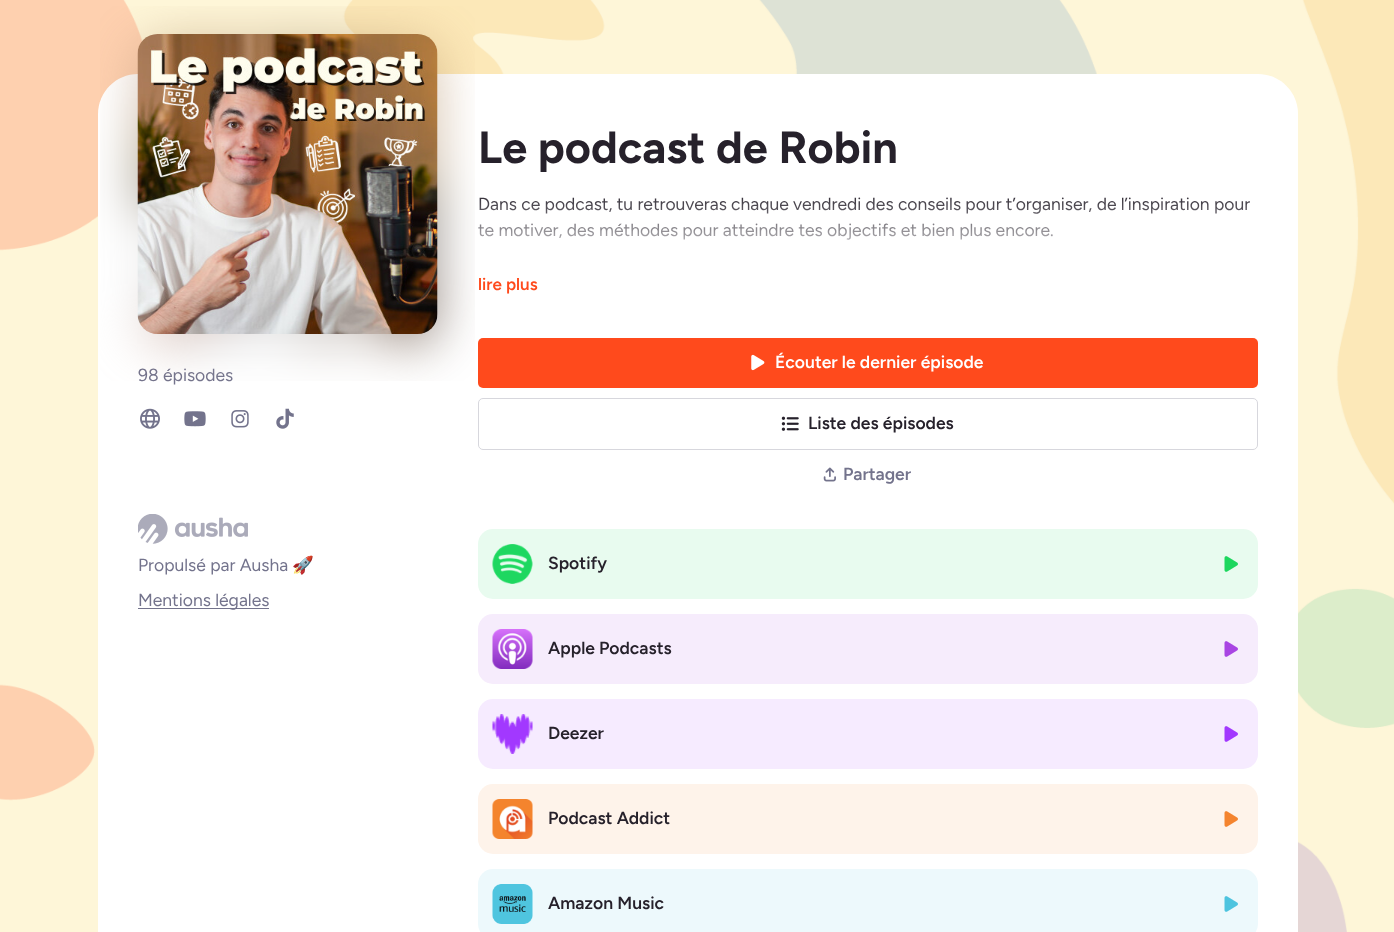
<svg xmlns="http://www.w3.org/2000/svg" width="1394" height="932">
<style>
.a{font:17.5px Figtree;fill:#73738c}
.b{font:17.5px Noto Color Emoji;fill:#73738c}
.c{font:bold 45px Figtree;fill:#26212b}
.d{font:17.5px Figtree;fill:#26212b}
.e{font:600 17px Figtree;fill:#ff4a1c}
.f{font:600 17.5px Figtree;fill:#fff}
.g{font:600 17.5px Figtree;fill:#26212b}
.h{font:600 17.5px Figtree;fill:#73738c}
</style>
<defs>
<linearGradient id="g1" gradientUnits="userSpaceOnUse" x1="868" y1="271" x2="868" y2="191"><stop offset="0" stop-color="#fff"/><stop offset="1" stop-color="#fff" stop-opacity="0"/></linearGradient>
</defs>
<rect width="100%" height="100%" fill="#fff"/>
<image href="1.png" x="0" y="0" width="1394" height="932"/>
<path fill="#fff" d="M138 74h1120c22 0 40 18 40 40v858h-1200v-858c0-22 18-40 40-40z"/>
<image href="4.png" x="140" y="408" width="20" height="21"/>
<image href="5.png" x="184" y="411" width="22" height="16"/>
<image href="6.png" x="231" y="410" width="18" height="18"/>
<image href="7.png" x="276" y="408" width="18" height="21"/>
<image href="8.png" x="138" y="514" width="110" height="30"/>
<path fill="#73738c" d="M138 608h131v1H138z"/>
<rect fill="#ff4a1c" x="478" y="338" width="780" height="50" rx="5"/>
<image href="9.png" x="751" y="354" width="14" height="17"/>
<rect fill="none" stroke="#d7d7dd" x="478.5" y="398.5" width="779" height="51" rx="4.5"/>
<image href="10.png" x="781" y="416" width="18" height="15"/>
<image href="11.png" x="823" y="467" width="13" height="15"/>
<rect fill="#e8fbef" x="478" y="529" width="780" height="70" rx="15"/>
<image href="12.png" x="492" y="544" width="41" height="40"/>
<image href="13.png" x="1224" y="556" width="14" height="16"/>
<rect fill="#f6ecfc" x="478" y="614" width="780" height="70" rx="15"/>
<image href="14.png" x="492" y="629" width="41" height="40"/>
<image href="15.png" x="1224" y="641" width="14" height="16"/>
<rect fill="#f6ebff" x="478" y="699" width="780" height="70" rx="15"/>
<image href="16.png" x="492" y="714" width="41" height="40"/>
<image href="17.png" x="1224" y="726" width="14" height="16"/>
<rect fill="#fef3ea" x="478" y="784" width="780" height="70" rx="15"/>
<image href="18.png" x="492" y="799" width="41" height="40"/>
<image href="19.png" x="1224" y="811" width="14" height="16"/>
<rect fill="#edf9fc" x="478" y="869" width="780" height="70" rx="15"/>
<image href="20.png" x="492" y="884" width="41" height="40"/>
<image href="21.png" x="1224" y="896" width="14" height="16"/>
<text class="a" x="138" y="381">98 épisodes</text>
<image href="2.png" x="100" y="6" width="375" height="375"/>
<image href="3.png" x="137" y="34" width="301" height="300"/>
<text class="a" x="138" y="571">Propulsé par Ausha</text>
<text class="b" x="292" y="571">🚀</text>
<text class="a" x="138" y="606">Mentions légales</text>
<text class="c" x="478" y="163">Le podcast de Robin</text>
<text class="d" x="478" y="210">Dans ce podcast, tu retrouveras chaque vendredi des conseils pour t’organiser, de l’inspiration pour</text>
<text class="d" x="478" y="236">te motiver, des méthodes pour atteindre tes objectifs et bien plus encore.</text>
<path fill="url(#g1)" d="M478 197h772v43H478z"/>
<text class="e" x="478" y="290">lire plus</text>
<text class="f" x="775" y="368">Écouter le dernier épisode</text>
<text class="g" x="808" y="429">Liste des épisodes</text>
<text class="h" x="843" y="480">Partager</text>
<text class="g" x="548" y="569">Spotify</text>
<text class="g" x="548" y="654">Apple Podcasts</text>
<text class="g" x="548" y="739">Deezer</text>
<text class="g" x="548" y="824">Podcast Addict</text>
<text class="g" x="548" y="909">Amazon Music</text>
</svg>
